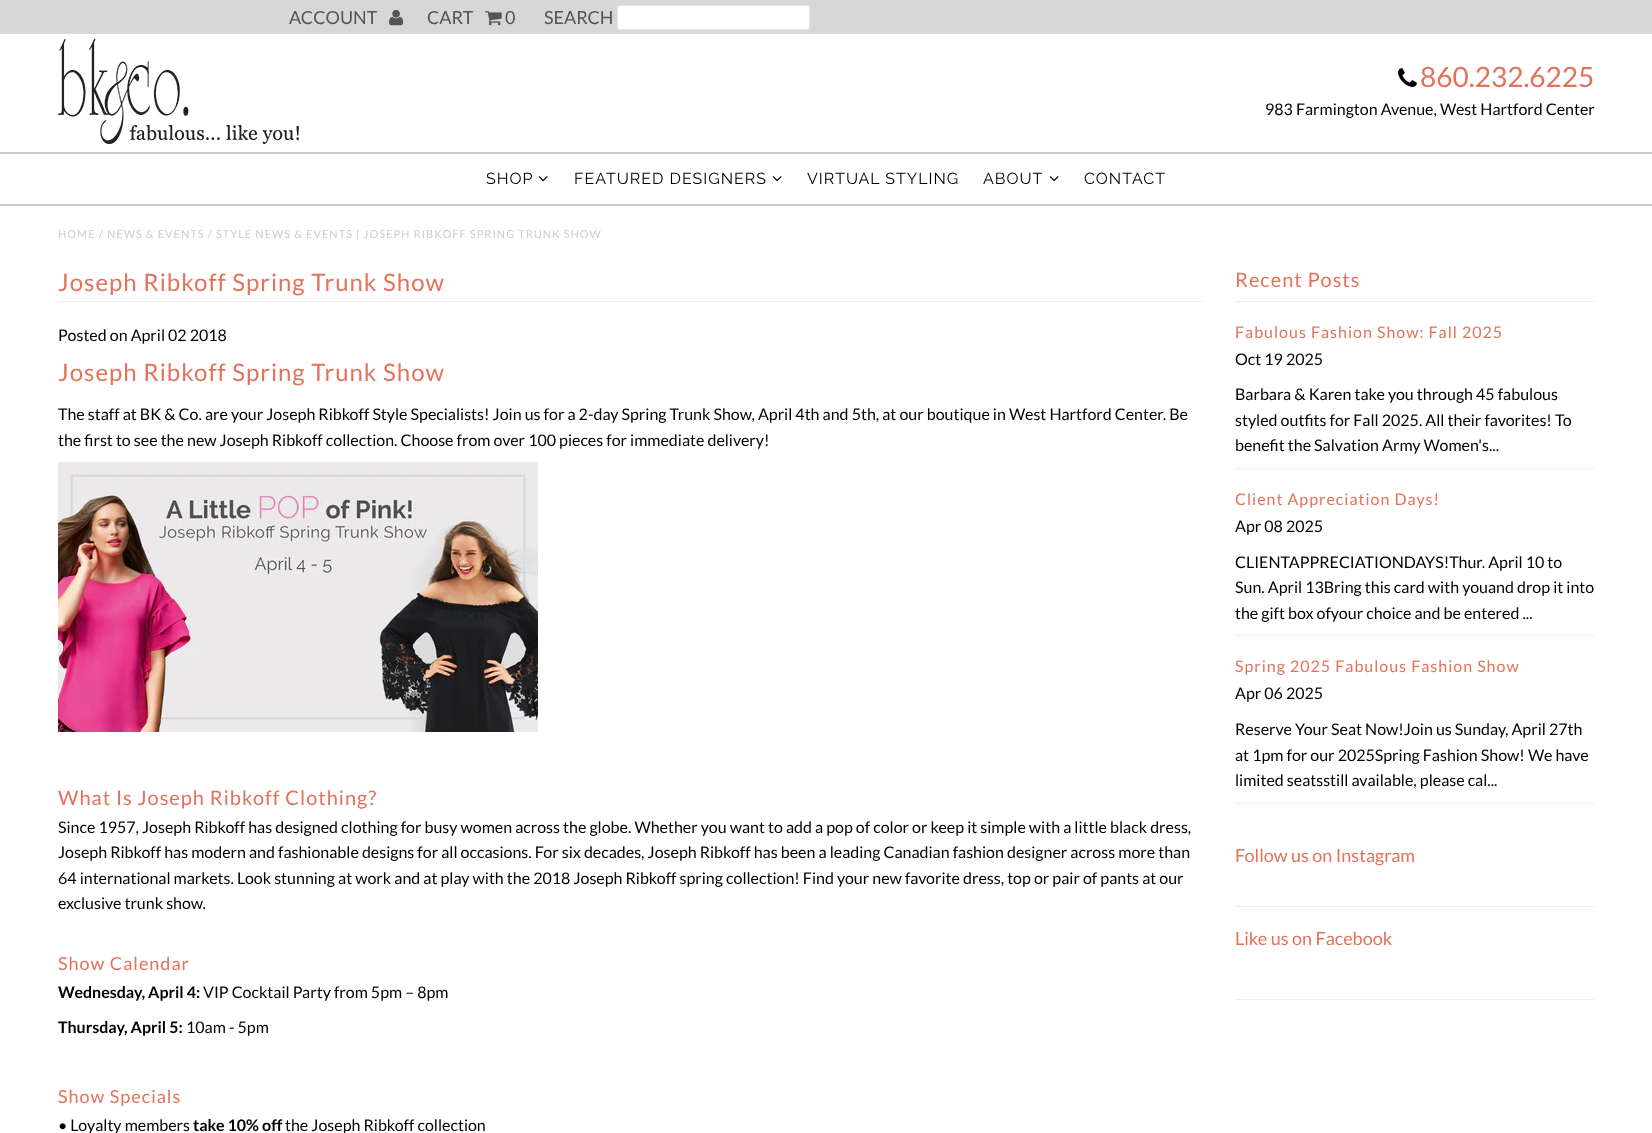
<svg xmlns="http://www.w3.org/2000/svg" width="1652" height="1133">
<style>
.a{font:18px Lato;fill:#555}
.b{font:28px Lato;fill:#e2725b}
.c{font:16px Lato;fill:#000}
.d{font:16px Raleway;letter-spacing:1px;fill:#000}
.e{font:11px Lato;letter-spacing:1px;fill:#ccc}
.f{font:24px Lato;letter-spacing:1px;fill:#e2725b}
.g{font:20px Lato;letter-spacing:1px;fill:#e2725b}
.h{font:18px Lato;letter-spacing:1px;fill:#e2725b}
.i{font:bold 16px Lato;fill:#000}
.j{font:16px Lato;letter-spacing:1px;fill:#e2725b}
.k{font:18px Lato;fill:#e2725b}
</style>
<rect width="100%" height="100%" fill="#fff"/>
<path fill="#d7d7d7" d="M0 0h1652v34H0z"/>
<image href="1.png" x="389" y="9" width="15" height="17"/>
<image href="2.png" x="485" y="11" width="17" height="15"/>
<rect fill="#fff" stroke="#e4e4e4" x="617.5" y="5.5" width="192" height="24" rx="2.5"/>
<image href="3.png" x="58" y="39" width="241" height="105"/>
<image href="4.png" x="1398" y="68" width="19" height="19"/>
<path fill="#ccc" d="M0 152h1652v2H0z"/>
<path fill="#ccc" d="M0 204h1652v2H0z"/>
<image href="5.png" x="538" y="176" width="10" height="6"/>
<image href="5.png" x="772" y="176" width="10" height="6"/>
<image href="5.png" x="1049" y="176" width="10" height="6"/>
<path fill="#eee" d="M58 301h1144v1H58z"/>
<image href="6.png" x="58" y="462" width="480" height="270"/>
<path fill="#eee" d="M1235 301h359v1H1235z"/>
<path fill="#eee" d="M1235 468h359v1H1235z"/>
<path fill="#eee" d="M1235 635h359v1H1235z"/>
<path fill="#eee" d="M1235 803h359v1H1235z"/>
<path fill="#eee" d="M1235 906h359v1H1235z"/>
<path fill="#eee" d="M1235 999h359v1H1235z"/>
<text class="a" x="289" y="24">ACCOUNT</text>
<text class="a" x="427" y="24">CART</text>
<text class="a" x="505" y="24">0</text>
<text class="a" x="544" y="24">SEARCH</text>
<text class="b" x="1420" y="87">860.232.6225</text>
<text class="c" x="1265" y="115">983 Farmington Avenue, West Hartford Center</text>
<text class="d" x="486" y="184">SHOP</text>
<text class="d" x="574" y="184">FEATURED DESIGNERS</text>
<text class="d" x="807" y="184">VIRTUAL STYLING</text>
<text class="d" x="983" y="184">ABOUT</text>
<text class="d" x="1084" y="184">CONTACT</text>
<text class="e" x="58" y="238">HOME / NEWS &amp; EVENTS / STYLE NEWS &amp; EVENTS | JOSEPH RIBKOFF SPRING TRUNK SHOW</text>
<text class="f" x="58" y="291">Joseph Ribkoff Spring Trunk Show</text>
<text class="c" x="58" y="341">Posted on April 02 2018</text>
<text class="f" x="58" y="381">Joseph Ribkoff Spring Trunk Show</text>
<text class="c" x="58" y="420">The staff at BK &amp; Co. are your Joseph Ribkoff Style Specialists! Join us for a 2-day Spring Trunk Show, April 4th and 5th, at our boutique in West Hartford Center. Be</text>
<text class="c" x="58" y="446">the first to see the new Joseph Ribkoff collection. Choose from over 100 pieces for immediate delivery!</text>
<text class="g" x="58" y="805">What Is Joseph Ribkoff Clothing?</text>
<text class="c" x="58" y="833">Since 1957, Joseph Ribkoff has designed clothing for busy women across the globe. Whether you want to add a pop of color or keep it simple with a little black dress,</text>
<text class="c" x="58" y="858">Joseph Ribkoff has modern and fashionable designs for all occasions. For six decades, Joseph Ribkoff has been a leading Canadian fashion designer across more than</text>
<text class="c" x="58" y="884">64 international markets. Look stunning at work and at play with the 2018 Joseph Ribkoff spring collection! Find your new favorite dress, top or pair of pants at our</text>
<text class="c" x="58" y="909">exclusive trunk show.</text>
<text class="h" x="58" y="970">Show Calendar</text>
<text class="i" x="58" y="998">Wednesday, April 4:</text>
<text class="c" x="203" y="998">VIP Cocktail Party from 5pm – 8pm</text>
<text class="i" x="58" y="1033">Thursday, April 5:</text>
<text class="c" x="186" y="1033">10am - 5pm</text>
<text class="h" x="58" y="1103">Show Specials</text>
<text class="c" x="58" y="1131">• Loyalty members</text>
<text class="i" x="193" y="1131">take 10% off</text>
<text class="c" x="285" y="1131">the Joseph Ribkoff collection</text>
<text class="g" x="1235" y="287">Recent Posts</text>
<text class="j" x="1235" y="338">Fabulous Fashion Show: Fall 2025</text>
<text class="c" x="1235" y="365">Oct 19 2025</text>
<text class="c" x="1235" y="400">Barbara &amp; Karen take you through 45 fabulous</text>
<text class="c" x="1235" y="426">styled outfits for Fall 2025. All their favorites! To</text>
<text class="c" x="1235" y="451">benefit the Salvation Army Women's...</text>
<text class="j" x="1235" y="505">Client Appreciation Days!</text>
<text class="c" x="1235" y="532">Apr 08 2025</text>
<text class="c" x="1235" y="568">CLIENTAPPRECIATIONDAYS!Thur. April 10 to</text>
<text class="c" x="1235" y="593">Sun. April 13Bring this card with youand drop it into</text>
<text class="c" x="1235" y="619">the gift box ofyour choice and be entered ...</text>
<text class="j" x="1235" y="672">Spring 2025 Fabulous Fashion Show</text>
<text class="c" x="1235" y="699">Apr 06 2025</text>
<text class="c" x="1235" y="735">Reserve Your Seat Now!Join us Sunday, April 27th</text>
<text class="c" x="1235" y="761">at 1pm for our 2025Spring Fashion Show! We have</text>
<text class="c" x="1235" y="786">limited seatsstill available, please cal...</text>
<text class="k" x="1235" y="862">Follow us on Instagram</text>
<text class="k" x="1235" y="945">Like us on Facebook</text>
</svg>
